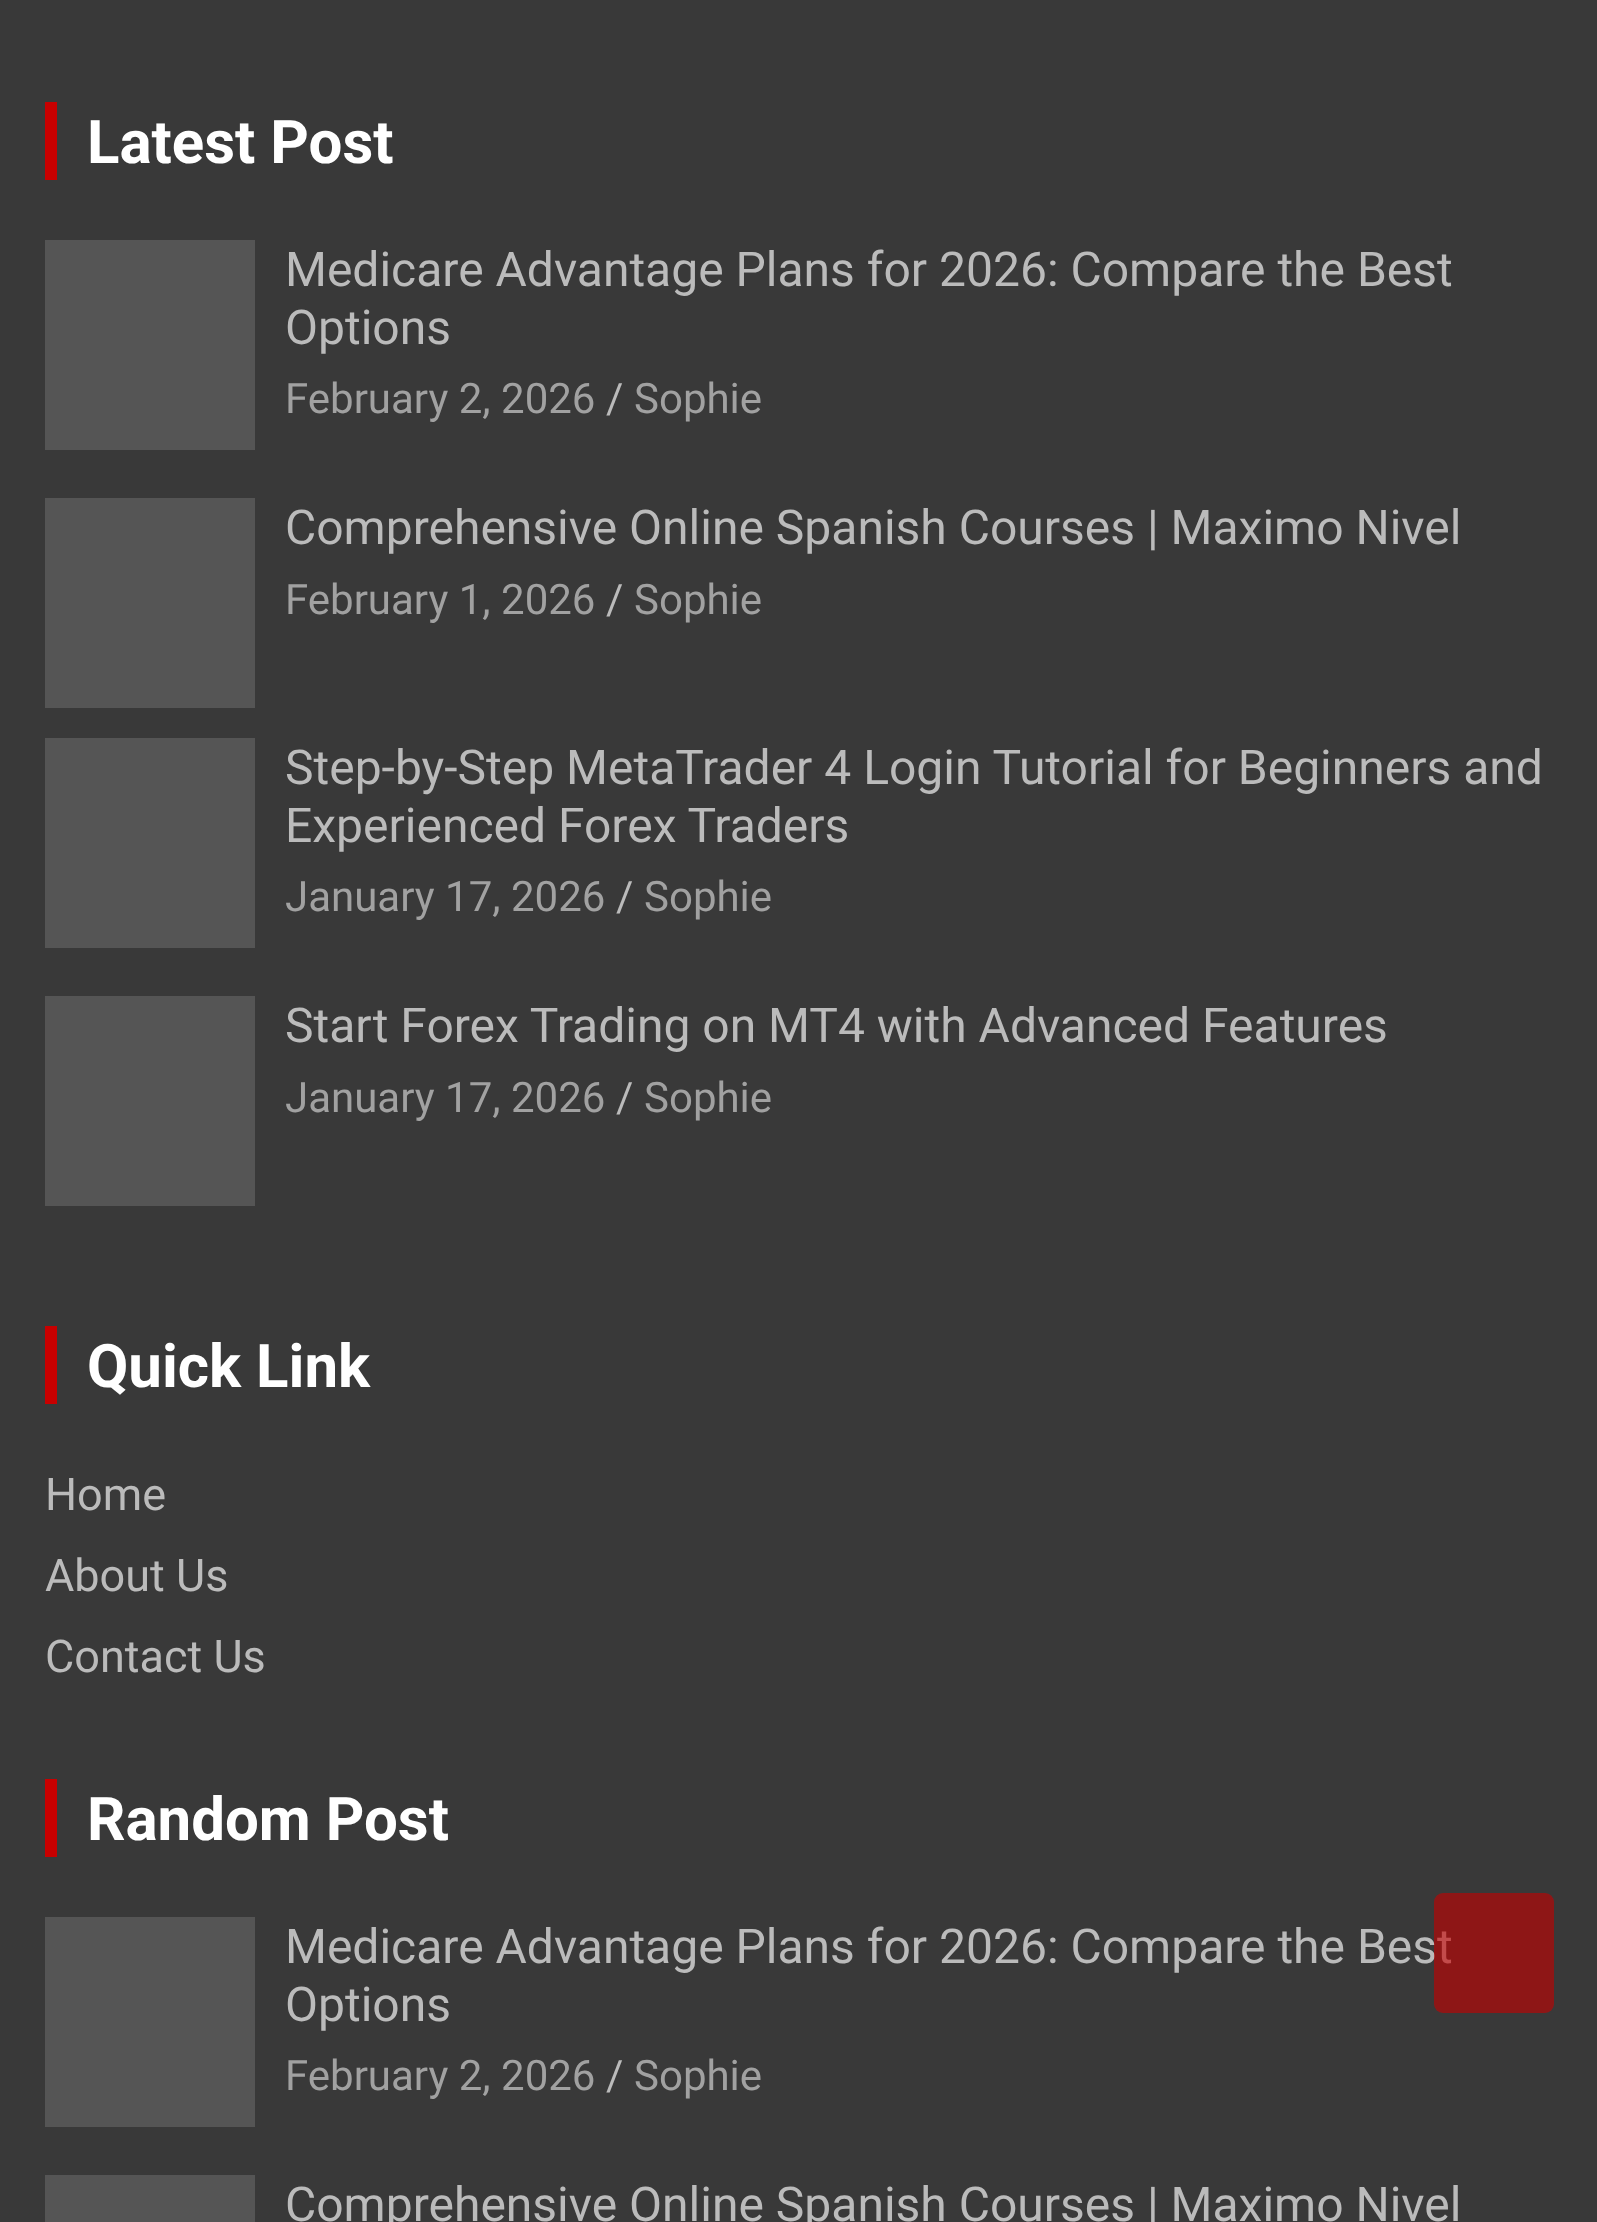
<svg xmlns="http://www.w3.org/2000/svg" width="1597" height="2222">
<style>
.a{font:bold 60px Roboto;fill:#fff}
.b{font:48px Roboto;fill:#bbb}
.c{font:42px Roboto;fill:#a1a1a1}
.d{font:42px Roboto;fill:#bbb}
.e{font:45px Roboto;fill:#bbb}
</style>
<rect width="100%" height="100%" fill="#393939"/>
<path fill="#c80000" d="M45 102h12v78H45z"/>
<path fill="#555" d="M45 240h210v210H45z"/>
<path fill="#555" d="M45 498h210v210H45z"/>
<path fill="#555" d="M45 738h210v210H45z"/>
<path fill="#555" d="M45 996h210v210H45z"/>
<path fill="#c80000" d="M45 1326h12v78H45z"/>
<path fill="#c80000" d="M45 1779h12v78H45z"/>
<path fill="#555" d="M45 1917h210v210H45z"/>
<path fill="#555" d="M45 2175h210v47H45z"/>
<text class="a" x="87" y="163">Latest Post</text>
<text class="b" x="285" y="286">Medicare Advantage Plans for 2026: Compare the Best</text>
<text class="b" x="285" y="344">Options</text>
<text class="c" x="285" y="413">February 2, 2026</text>
<text class="d" x="606" y="413">/</text>
<text class="c" x="634" y="413">Sophie</text>
<text class="b" x="285" y="544">Comprehensive Online Spanish Courses | Maximo Nivel</text>
<text class="c" x="285" y="614">February 1, 2026</text>
<text class="d" x="606" y="614">/</text>
<text class="c" x="634" y="614">Sophie</text>
<text class="b" x="285" y="784">Step-by-Step MetaTrader 4 Login Tutorial for Beginners and</text>
<text class="b" x="285" y="842">Experienced Forex Traders</text>
<text class="c" x="285" y="911">January 17, 2026</text>
<text class="d" x="616" y="911">/</text>
<text class="c" x="644" y="911">Sophie</text>
<text class="b" x="285" y="1042">Start Forex Trading on MT4 with Advanced Features</text>
<text class="c" x="285" y="1112">January 17, 2026</text>
<text class="d" x="616" y="1112">/</text>
<text class="c" x="644" y="1112">Sophie</text>
<text class="a" x="87" y="1387">Quick Link</text>
<text class="e" x="45" y="1510">Home</text>
<text class="e" x="45" y="1591">About Us</text>
<text class="e" x="45" y="1672">Contact Us</text>
<text class="a" x="87" y="1840">Random Post</text>
<text class="b" x="285" y="1963">Medicare Advantage Plans for 2026: Compare the Best</text>
<text class="b" x="285" y="2021">Options</text>
<text class="c" x="285" y="2090">February 2, 2026</text>
<text class="d" x="606" y="2090">/</text>
<text class="c" x="634" y="2090">Sophie</text>
<text class="b" x="285" y="2221">Comprehensive Online Spanish Courses | Maximo Nivel</text>
<rect fill="#c8000099" x="1434" y="1893" width="120" height="120" rx="9"/>
</svg>
